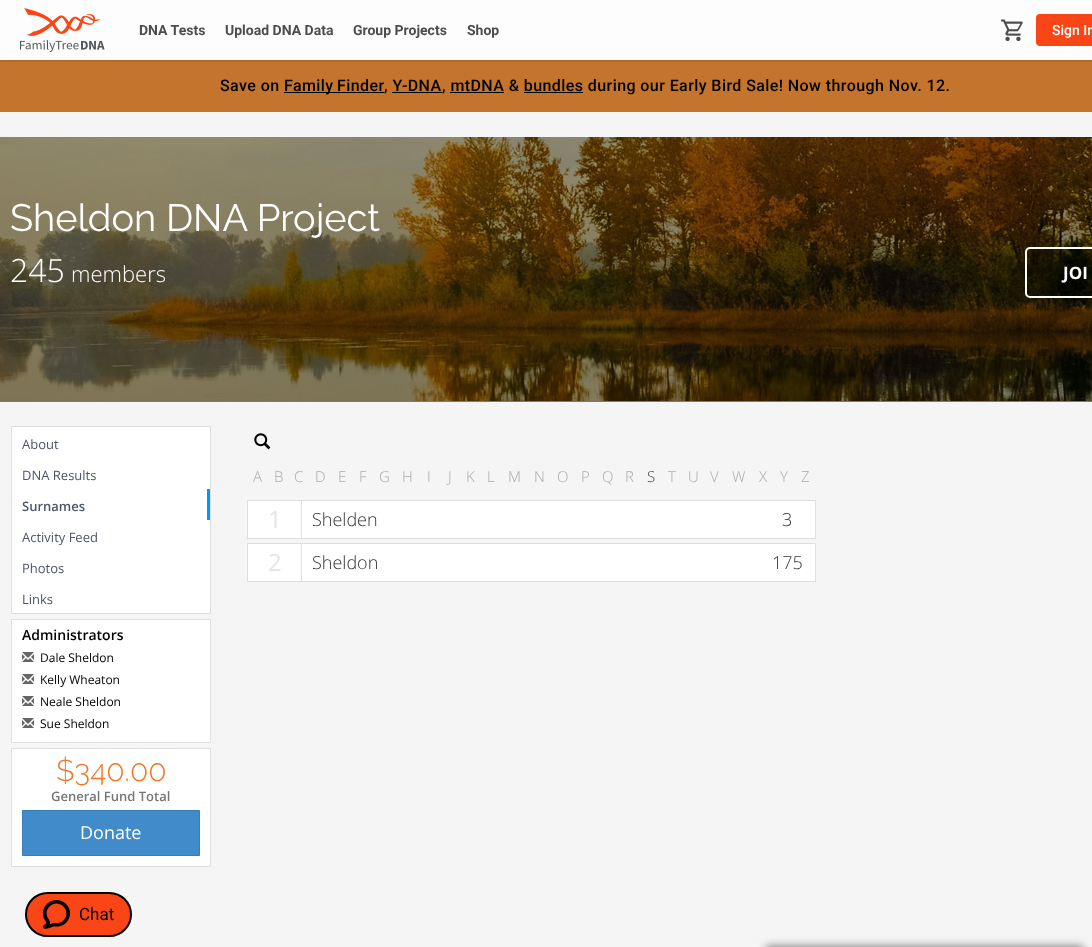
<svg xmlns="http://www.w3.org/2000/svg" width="1092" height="947">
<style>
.a{font:bold 14px Roboto;fill:#4d4d4d}
.b{font:500 14px Roboto;fill:#fff}
.c{font:500 16px Roboto;letter-spacing:0.42px;fill:#000}
.d{font:38px Raleway;fill:#fff}
.e{font:300 32px Open Sans;fill:#fff}
.f{font:300 22px Open Sans;fill:#fff}
.g{font:bold 17px Open Sans;fill:#fff}
.h{font:13px Open Sans;fill:#4d5667}
.i{font:600 13px Open Sans;fill:#4d5667}
.j{font:600 14px Open Sans;fill:#000}
.k{font:12px Open Sans;fill:#000}
.l{font:300 30px Raleway;fill:#f17627}
.m{font:600 13px Open Sans;fill:#777}
.n{font:18px Open Sans;fill:#fff}
.o{font:300 15px Open Sans;fill:#aaa}
.p{font:300 15px Open Sans;fill:#333}
.q{font:24px Open Sans;fill:#e4e4e4}
.r{font:300 18px Open Sans;fill:#333}
.s{font:17px Roboto;fill:#000}
</style>
<rect width="100%" height="100%" fill="#f5f5f5"/>
<path fill="#c4742c" d="M0 60h1092v52H0z"/>
<path fill="#21212136" filter="blur(1px)" d="M0 1h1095v60H0z"/>
<path fill="#fdfdfd" d="M0 0h1092v60H0z"/>
<image href="1.png" x="20" y="8" width="85" height="44"/>
<image href="2.png" x="1001" y="19" width="22" height="22"/>
<rect fill="#fa4616" x="1036" y="14" width="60" height="32" rx="4"/>
<path fill="#000" d="M284 92h100v1H284z"/>
<path fill="#000" d="M392 92h50v1H392z"/>
<path fill="#000" d="M450 92h54v1H450z"/>
<path fill="#000" d="M524 92h59v1H524z"/>
<image href="3.png" x="0" y="137" width="1092" height="264"/>
<path fill="#797979" d="M0 401h1092v1H0z"/>
<rect fill="#00000040" stroke="#fff" stroke-width="2" x="1026" y="248" width="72" height="49" rx="4"/>
<path fill="#fff" stroke="#dfdfdf" d="M11.5 426.5h199v187H11.5z"/>
<path fill="#0096ff" d="M207 489h3v31H207z"/>
<path fill="#fff" stroke="#dfdfdf" d="M11.5 619.5h199v123H11.5z"/>
<image href="4.png" x="22" y="652" width="12" height="10"/>
<image href="4.png" x="22" y="674" width="12" height="10"/>
<image href="4.png" x="22" y="696" width="12" height="10"/>
<image href="4.png" x="22" y="718" width="12" height="10"/>
<path fill="#fff" stroke="#dfdfdf" d="M11.5 748.5h199v118H11.5z"/>
<path fill="#428bca" stroke="#357ebd" d="M22.5 810.5h177v45H22.5z"/>
<image href="5.png" x="254" y="433" width="17" height="17"/>
<path fill="#fff" d="M248 501h53v37H248z"/>
<path fill="#ddd" d="M247 500h569v1H247z"/>
<path fill="#dfdfdf" d="M301 500h1v39H301z"/>
<path fill="#ddd" d="M247 538h513v1H247z"/>
<path fill="#dfdfdf" d="M247 500h1v39H247z"/>
<path fill="#fff" d="M302 501h513v37H302z"/>
<path fill="#dfdfdf" d="M815 500h1v39H815z"/>
<path fill="#ddd" d="M760 538h56v1H760z"/>
<path fill="#fff" d="M248 544h53v37H248z"/>
<path fill="#ddd" d="M247 543h569v1H247z"/>
<path fill="#dfdfdf" d="M301 543h1v39H301z"/>
<path fill="#ddd" d="M247 581h513v1H247z"/>
<path fill="#dfdfdf" d="M247 543h1v39H247z"/>
<path fill="#fff" d="M302 544h513v37H302z"/>
<path fill="#dfdfdf" d="M815 543h1v39H815z"/>
<path fill="#ddd" d="M760 581h56v1H760z"/>
<rect fill="#fa4616" stroke="#000" stroke-width="2" x="26" y="893" width="105" height="43" rx="21.5"/>
<image href="6.png" x="43" y="900" width="27" height="29"/>
<path fill="#808080" filter="blur(4px)" d="M766 946h317v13H766z"/>
<text class="a" x="139" y="35">DNA Tests</text>
<text class="a" x="225" y="35">Upload DNA Data</text>
<text class="a" x="353" y="35">Group Projects</text>
<text class="a" x="467" y="35">Shop</text>
<text class="b" x="1052" y="35">Sign In</text>
<text class="c" x="220" y="91">Save on</text>
<text class="c" x="284" y="91" word-spacing="-1">Family Finder</text>
<text class="c" x="384" y="91">, Y-DNA</text>
<text class="c" x="442" y="91">, mtDNA &amp; bundles during our Early Bird Sale! Now through Nov. 12.</text>
<text class="d" x="10" y="231">Sheldon DNA Project</text>
<text class="e" x="10" y="282">245</text>
<text class="f" x="71" y="282">members</text>
<text class="g" x="1063" y="279">JOI</text>
<text class="h" x="22" y="449">About</text>
<text class="h" x="22" y="480">DNA Results</text>
<text class="i" x="22" y="511">Surnames</text>
<text class="h" x="22" y="542">Activity Feed</text>
<text class="h" x="22" y="573">Photos</text>
<text class="h" x="22" y="604">Links</text>
<text class="j" x="22" y="640">Administrators</text>
<text class="k" x="40" y="662">Dale Sheldon</text>
<text class="k" x="40" y="684">Kelly Wheaton</text>
<text class="k" x="40" y="706">Neale Sheldon</text>
<text class="k" x="40" y="728">Sue Sheldon</text>
<text class="l" x="56" y="781">$340.00</text>
<text class="m" x="51" y="801">General Fund Total</text>
<text class="n" x="80" y="839">Donate</text>
<text class="o" x="253" y="482">A</text>
<text class="o" x="274" y="482">B</text>
<text class="o" x="294" y="482">C</text>
<text class="o" x="315" y="482">D</text>
<text class="o" x="338" y="482">E</text>
<text class="o" x="359" y="482">F</text>
<text class="o" x="379" y="482">G</text>
<text class="o" x="402" y="482">H</text>
<text class="o" x="427" y="482">I</text>
<text class="o" x="448" y="482">J</text>
<text class="o" x="466" y="482">K</text>
<text class="o" x="487" y="482">L</text>
<text class="o" x="508" y="482">M</text>
<text class="o" x="534" y="482">N</text>
<text class="o" x="557" y="482">O</text>
<text class="o" x="581" y="482">P</text>
<text class="o" x="602" y="482">Q</text>
<text class="o" x="625" y="482">R</text>
<text class="p" x="647" y="482">S</text>
<text class="o" x="668" y="482">T</text>
<text class="o" x="688" y="482">U</text>
<text class="o" x="710" y="482">V</text>
<text class="o" x="732" y="482">W</text>
<text class="o" x="759" y="482">X</text>
<text class="o" x="780" y="482">Y</text>
<text class="o" x="801" y="482">Z</text>
<text class="q" x="268" y="528">1</text>
<text class="r" x="312" y="526">Shelden</text>
<text class="r" x="782" y="526">3</text>
<text class="q" x="268" y="571">2</text>
<text class="r" x="312" y="569">Sheldon</text>
<text class="r" x="772" y="569">175</text>
<text class="s" x="79" y="920">Chat</text>
</svg>
